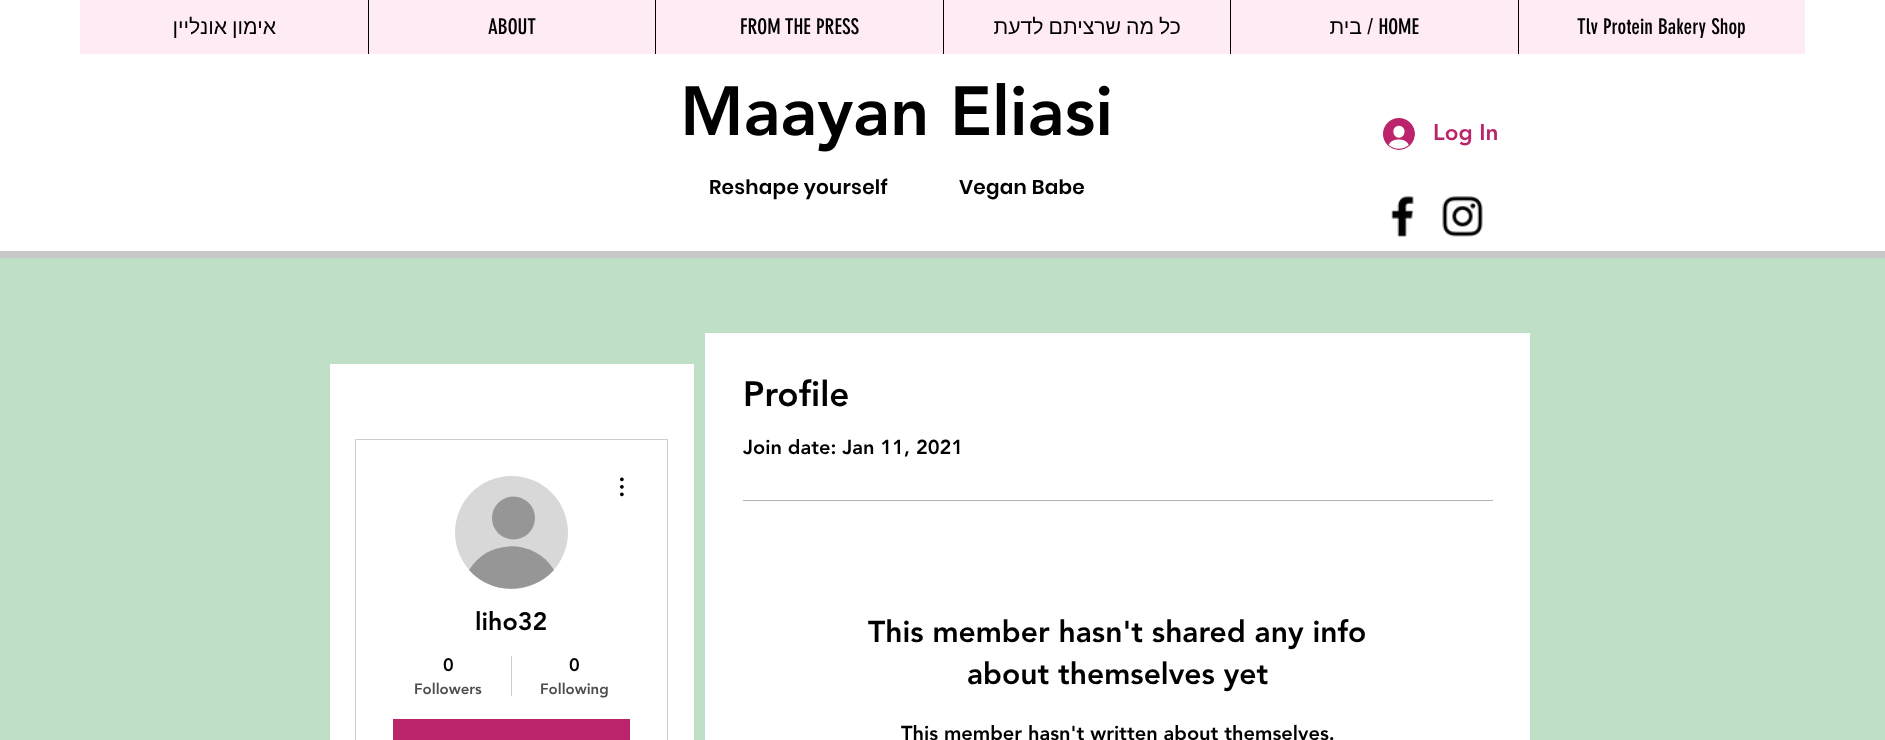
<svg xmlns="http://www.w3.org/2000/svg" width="1885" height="740">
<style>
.a{font:21.25px Liberation Sans;direction:rtl;fill:#000}
.b{font:21.25px 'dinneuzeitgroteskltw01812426';fill:#000}
.c{font:900 68.75px 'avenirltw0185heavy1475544';fill:#000}
.d{font:900 22.5px 'avenirltw0185heavy1475544';fill:#bb236a}
.e{font:600 20px Poppins;letter-spacing:0.25px;fill:#000}
.f{font:900 25px 'avenirltw0185heavy1475544';fill:#000}
.g{font:900 18px 'avenirltw0185heavy1475544';fill:#000}
.h{font:900 15px 'avenirltw0185heavy1475544';fill:#4d4d4d}
.i{font:900 35px 'avenirltw0185heavy1475544';fill:#000}
.j{font:900 20px 'avenirltw0185heavy1475544';fill:#000}
.k{font:900 30px 'avenirltw0185heavy1475544';fill:#000}
</style>
<rect width="100%" height="100%" fill="#bfe0c6"/>
<path fill="#fff" d="M0 0h1885v251H0z"/>
<path fill="#c7c7c7" d="M0 251h1885v7H0z"/>
<path fill="#ffebf6" d="M80 0h1725v54H80z"/>
<path fill="#000" d="M368 0h1v54H368z"/>
<path fill="#000" d="M655 0h1v54H655z"/>
<path fill="#000" d="M943 0h1v54H943z"/>
<path fill="#000" d="M1230 0h1v54H1230z"/>
<path fill="#000" d="M1518 0h1v54H1518z"/>
<image href="1.png" x="1383" y="118" width="32" height="32"/>
<image href="2.png" x="1391" y="196" width="23" height="41"/>
<image href="3.png" x="1442" y="196" width="41" height="41"/>
<path fill="#fff" d="M330 364h364v376H330z"/>
<path fill="none" stroke="#ccc" d="M355.5 439.5h312v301H355.5z"/>
<circle fill="#d8d8d8" cx="511.5" cy="532.5" r="56.5"/>
<circle fill="#969696" cx="513.5" cy="518" r="21.5"/>
<path fill="#969696" d="M554 570c-23 25-63 25-85 0c19-32 66-31 85 0z"/>
<image href="4.png" x="620" y="477" width="4" height="20"/>
<path fill="#ccc" d="M511 656h1v40H511z"/>
<path fill="#bb236a" d="M393 719h237v21H393z"/>
<path fill="#fff" d="M705 333h825v407H705z"/>
<path fill="#b3b3b3" d="M743 500h750v1H743z"/>
<text class="a" x="276" y="34" word-spacing="-1">אימון אונליין</text>
<text class="b" x="488" y="34">ABOUT</text>
<text class="b" x="740" y="34">FROM THE PRESS</text>
<text class="a" x="1181" y="34" word-spacing="-1">כל מה שרציתם לדעת</text>
<text class="a" x="1362" y="34">בית</text>
<text class="b" x="1367" y="34">/ HOME</text>
<text class="b" x="1577" y="34">Tlv Protein Bakery Shop</text>
<text class="c" x="680" y="135">Maayan Eliasi</text>
<text class="d" x="1433" y="140">Log In</text>
<text class="e" x="709" y="194">Reshape yourself</text>
<text class="e" x="959" y="194">Vegan Babe</text>
<text class="f" x="475" y="630">liho32</text>
<text class="g" x="443" y="671">0</text>
<text class="h" x="414" y="694">Followers</text>
<text class="g" x="569" y="671">0</text>
<text class="h" x="540" y="694">Following</text>
<text class="i" x="743" y="406">Profile</text>
<text class="j" x="743" y="454">Join date: Jan 11, 2021</text>
<text class="k" x="868" y="642">This member hasn't shared any info</text>
<text class="k" x="967" y="684">about themselves yet</text>
<text class="j" x="901" y="740">This member hasn't written about themselves.</text>
</svg>
